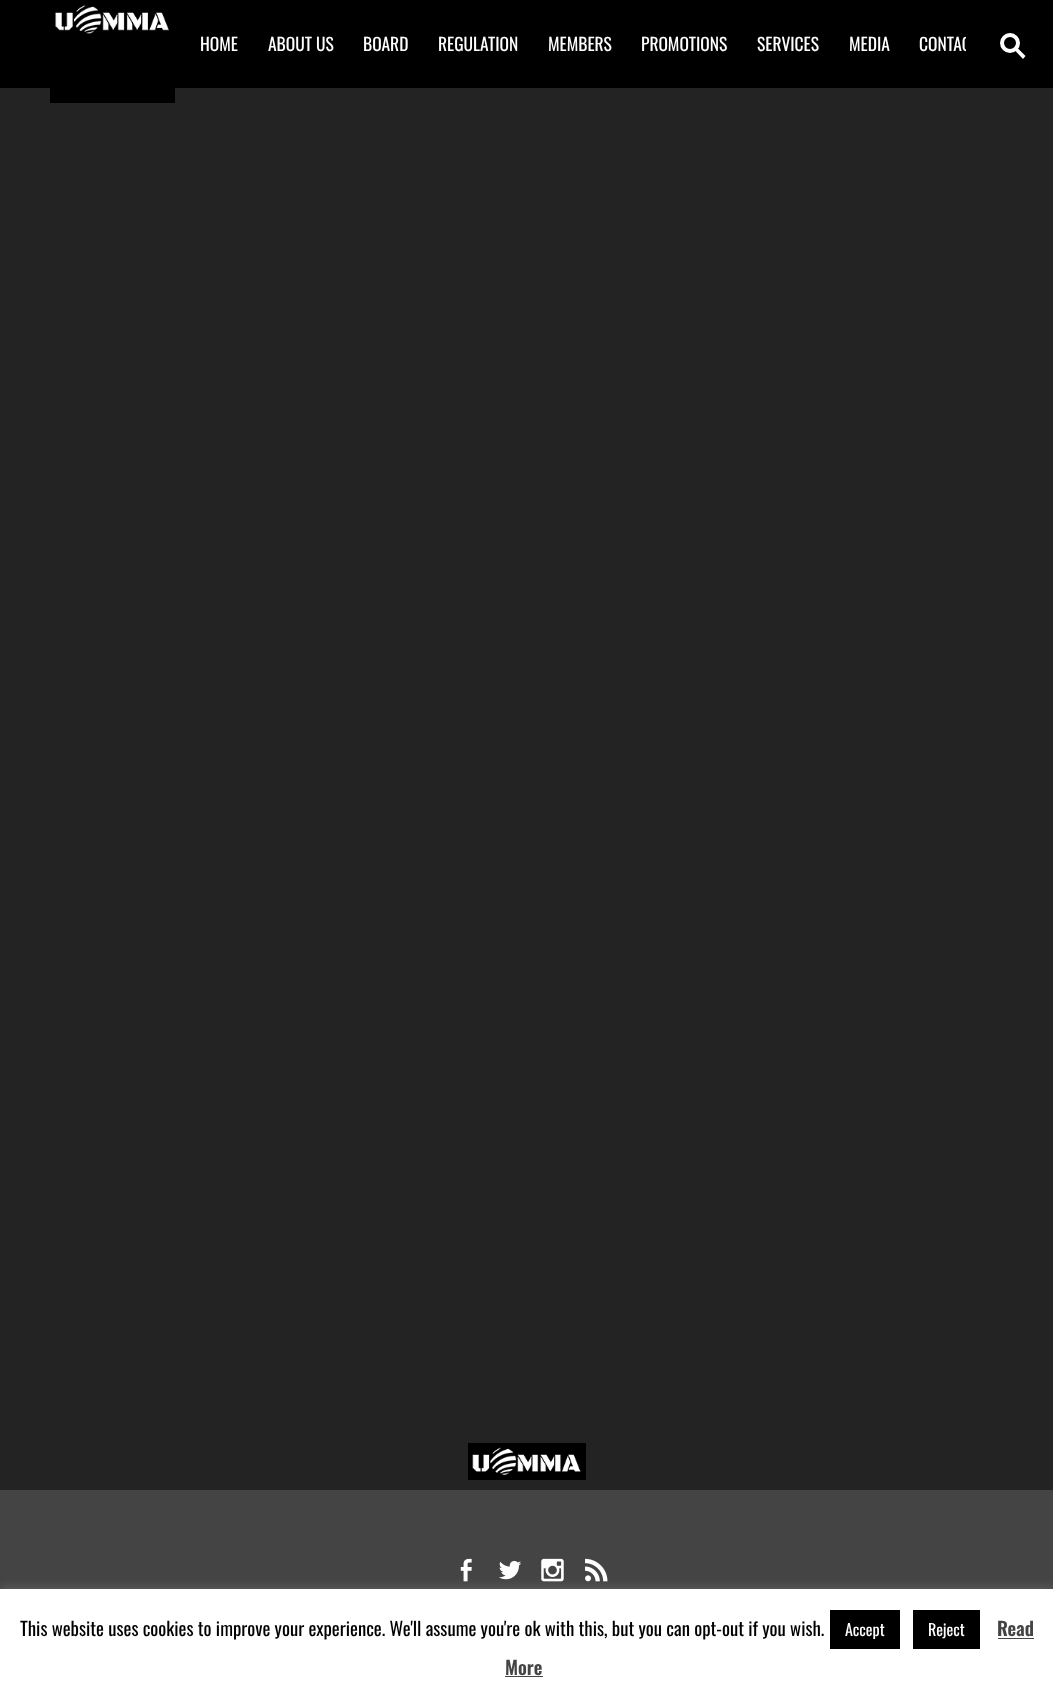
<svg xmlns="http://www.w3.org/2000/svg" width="1053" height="1691">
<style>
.a{font:17.5px Oswald;fill:#fff}
.b{font:18.75px Oswald;fill:#000}
.c{font:16px Oswald;fill:#fff}
.d{font:600 18.75px Oswald;fill:#444}
</style>
<defs>
<clipPath id="clip1"><path d="M188 0h778v88H188z"/></clipPath>
</defs>
<rect width="100%" height="100%" fill="#232323"/>
<path fill="#000" d="M50 88h125v15H50z"/>
<path fill="#000" d="M0 0h1053v88H0z"/>
<image href="1.png" x="55" y="5" width="114" height="29"/>
<circle fill="none" stroke="#fff" stroke-width="4" cx="1010" cy="43" r="8"/>
<path fill="#fff" d="M1017 47.5l8.5 8.5l-2.5 3l-8.5-9z"/>
<path fill="#444" d="M0 1490h1053v99H0z"/>
<path fill="#000" d="M468 1443h118v37H468z"/>
<image href="2.png" x="472" y="1447" width="109" height="28"/>
<image href="3.png" x="460" y="1558" width="12" height="24"/>
<image href="4.png" x="499" y="1560" width="23" height="20"/>
<image href="5.png" x="541" y="1558" width="23" height="24"/>
<image href="6.png" x="585" y="1558" width="23" height="24"/>
<path fill="#acabab4d" filter="blur(6px)" d="M0 1588h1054v102H0z"/>
<path fill="#fff" d="M0 1589h1053v102H0z"/>
<path fill="#000" d="M830 1610h70v39H830z"/>
<path fill="#000" d="M913 1610h67v39H913z"/>
<path fill="#444" d="M998 1638h36v1H998z"/>
<path fill="#444" d="M505 1676h38v1H505z"/>
<text class="a" x="200" y="51">HOME</text>
<text class="a" x="268" y="51">ABOUT US</text>
<text class="a" x="363" y="51">BOARD</text>
<text class="a" x="438" y="51">REGULATION</text>
<text class="a" x="548" y="51">MEMBERS</text>
<text class="a" x="641" y="51">PROMOTIONS</text>
<text class="a" x="757" y="51">SERVICES</text>
<text class="a" x="849" y="51">MEDIA</text>
<g clip-path="url(#clip1)">
<text class="a" x="919" y="51">CONTAC</text>
</g>
<text class="b" x="20" y="1636">This website uses cookies to improve your experience. We'll assume you're ok with this, but you can opt-out if you wish.</text>
<text class="c" x="845" y="1636">Accept</text>
<text class="c" x="928" y="1636">Reject</text>
<text class="d" x="997" y="1636">Read</text>
<text class="d" x="505" y="1675">More</text>
</svg>
